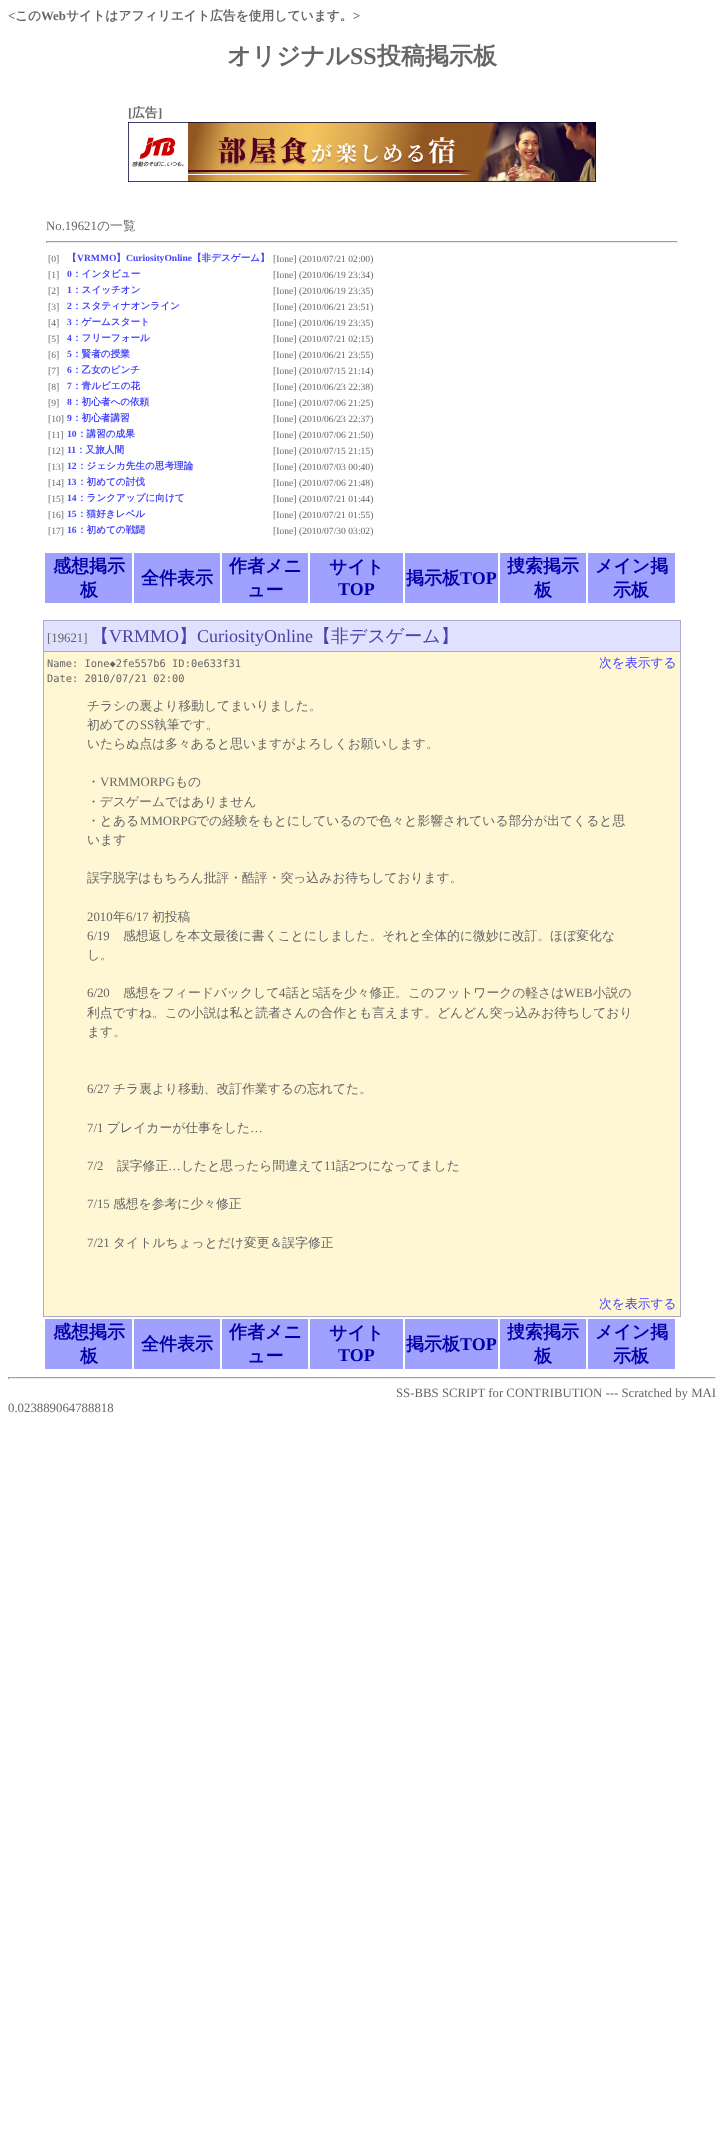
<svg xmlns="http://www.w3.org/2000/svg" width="724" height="2137">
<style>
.a{font:bold 12.8px Liberation Serif;fill:#666}
.b{font:bold 12.8px WenQuanYi Zen Hei;fill:#666}
.c{font:bold 24px WenQuanYi Zen Hei;fill:#666}
.d{font:bold 24px Liberation Serif;fill:#666}
.e{font:12.8px Liberation Serif;fill:#666}
.f{font:500 12.8px WenQuanYi Zen Hei;fill:#666}
.g{font:9.6px Liberation Serif;fill:#666}
.h{font:bold 9.6px WenQuanYi Zen Hei;fill:#44f}
.i{font:bold 9.6px Liberation Serif;fill:#44f}
.j{font:bold 18px WenQuanYi Zen Hei;fill:#00a}
.k{font:bold 18px Liberation Serif;fill:#00a}
.l{font:500 18px WenQuanYi Zen Hei;fill:#44a}
.m{font:18px Liberation Serif;fill:#44a}
.n{font:10.4px DejaVu Sans Mono;fill:#666}
.o{font:500 12.8px WenQuanYi Zen Hei;fill:#44f}
</style>
<rect width="100%" height="100%" fill="#fff"/>
<image href="1.png" x="128" y="122" width="468" height="60"/>
<path fill="#9f9f9f" d="M46 241h632v1H46z"/>
<path fill="#eee" d="M677 241h1v2H677z"/>
<path fill="#eee" d="M46 242h632v1H46z"/>
<path fill="#9f9f9f" d="M46 241h1v2H46z"/>
<path fill="#a0a0ff" d="M45 553h87v50H45z"/>
<path fill="#a0a0ff" d="M134 553h86v50H134z"/>
<path fill="#a0a0ff" d="M222 553h86v50H222z"/>
<path fill="#a0a0ff" d="M310 553h93v50H310z"/>
<path fill="#a0a0ff" d="M405 553h93v50H405z"/>
<path fill="#a0a0ff" d="M500 553h86v50H500z"/>
<path fill="#a0a0ff" d="M588 553h87v50H588z"/>
<path fill="#aac" d="M43 620h638v697H43z"/>
<path fill="#e0e0ff" d="M44 621h636v30H44z"/>
<path fill="#fff7d4" d="M44 652h636v664H44z"/>
<path fill="#a0a0ff" d="M45 1319h87v50H45z"/>
<path fill="#a0a0ff" d="M134 1319h86v50H134z"/>
<path fill="#a0a0ff" d="M222 1319h86v50H222z"/>
<path fill="#a0a0ff" d="M310 1319h93v50H310z"/>
<path fill="#a0a0ff" d="M405 1319h93v50H405z"/>
<path fill="#a0a0ff" d="M500 1319h86v50H500z"/>
<path fill="#a0a0ff" d="M588 1319h87v50H588z"/>
<path fill="#9f9f9f" d="M8 1377h708v1H8z"/>
<path fill="#eee" d="M715 1377h1v2H715z"/>
<path fill="#eee" d="M8 1378h708v1H8z"/>
<path fill="#9f9f9f" d="M8 1377h1v2H8z"/>
<text class="a" x="8" y="20">&lt;</text>
<text class="b" x="15" y="20">この</text>
<text class="a" x="41" y="20">Web</text>
<text class="b" x="66" y="20">サイトはアフィリエイト広告を使用しています。</text>
<text class="a" x="353" y="20">&gt;</text>
<text class="c" x="227" y="64">オリジナル</text>
<text class="d" x="350" y="64">SS</text>
<text class="c" x="377" y="64">投稿掲示板</text>
<text class="a" x="128" y="117">[</text>
<text class="b" x="132" y="117">広告</text>
<text class="a" x="158" y="117">]</text>
<text class="e" x="46" y="230">No.19621</text>
<text class="f" x="97" y="230">の一覧</text>
<text class="g" x="48" y="262">[0]</text>
<text class="h" x="67" y="261">【</text>
<text class="i" x="77" y="261">VRMMO</text>
<text class="h" x="116" y="261">】</text>
<text class="i" x="126" y="261">CuriosityOnline</text>
<text class="h" x="192" y="261">【非デスゲーム】</text>
<text class="g" x="273" y="262">[Ione]</text>
<text class="g" x="299" y="262">(2010/07/21 02:00)</text>
<text class="g" x="48" y="278">[1]</text>
<text class="i" x="67" y="277">0</text>
<text class="h" x="72" y="277">：インタビュー</text>
<text class="g" x="273" y="278">[Ione]</text>
<text class="g" x="299" y="278">(2010/06/19 23:34)</text>
<text class="g" x="48" y="294">[2]</text>
<text class="i" x="67" y="293">1</text>
<text class="h" x="72" y="293">：スイッチオン</text>
<text class="g" x="273" y="294">[Ione]</text>
<text class="g" x="299" y="294">(2010/06/19 23:35)</text>
<text class="g" x="48" y="310">[3]</text>
<text class="i" x="67" y="309">2</text>
<text class="h" x="72" y="309">：スタティナオンライン</text>
<text class="g" x="273" y="310">[Ione]</text>
<text class="g" x="299" y="310">(2010/06/21 23:51)</text>
<text class="g" x="48" y="326">[4]</text>
<text class="i" x="67" y="325">3</text>
<text class="h" x="72" y="325">：ゲームスタート</text>
<text class="g" x="273" y="326">[Ione]</text>
<text class="g" x="299" y="326">(2010/06/19 23:35)</text>
<text class="g" x="48" y="342">[5]</text>
<text class="i" x="67" y="341">4</text>
<text class="h" x="72" y="341">：フリーフォール</text>
<text class="g" x="273" y="342">[Ione]</text>
<text class="g" x="299" y="342">(2010/07/21 02:15)</text>
<text class="g" x="48" y="358">[6]</text>
<text class="i" x="67" y="357">5</text>
<text class="h" x="72" y="357">：賢者の授業</text>
<text class="g" x="273" y="358">[Ione]</text>
<text class="g" x="299" y="358">(2010/06/21 23:55)</text>
<text class="g" x="48" y="374">[7]</text>
<text class="i" x="67" y="373">6</text>
<text class="h" x="72" y="373">：乙女のピンチ</text>
<text class="g" x="273" y="374">[Ione]</text>
<text class="g" x="299" y="374">(2010/07/15 21:14)</text>
<text class="g" x="48" y="390">[8]</text>
<text class="i" x="67" y="389">7</text>
<text class="h" x="72" y="389">：青ルビエの花</text>
<text class="g" x="273" y="390">[Ione]</text>
<text class="g" x="299" y="390">(2010/06/23 22:38)</text>
<text class="g" x="48" y="406">[9]</text>
<text class="i" x="67" y="405">8</text>
<text class="h" x="72" y="405">：初心者への依頼</text>
<text class="g" x="273" y="406">[Ione]</text>
<text class="g" x="299" y="406">(2010/07/06 21:25)</text>
<text class="g" x="48" y="422">[10]</text>
<text class="i" x="67" y="421">9</text>
<text class="h" x="72" y="421">：初心者講習</text>
<text class="g" x="273" y="422">[Ione]</text>
<text class="g" x="299" y="422">(2010/06/23 22:37)</text>
<text class="g" x="48" y="438">[11]</text>
<text class="i" x="67" y="437">10</text>
<text class="h" x="77" y="437">：講習の成果</text>
<text class="g" x="273" y="438">[Ione]</text>
<text class="g" x="299" y="438">(2010/07/06 21:50)</text>
<text class="g" x="48" y="454">[12]</text>
<text class="i" x="67" y="453">11</text>
<text class="h" x="76" y="453">：又旅人間</text>
<text class="g" x="273" y="454">[Ione]</text>
<text class="g" x="299" y="454">(2010/07/15 21:15)</text>
<text class="g" x="48" y="470">[13]</text>
<text class="i" x="67" y="469">12</text>
<text class="h" x="77" y="469">：ジェシカ先生の思考理論</text>
<text class="g" x="273" y="470">[Ione]</text>
<text class="g" x="299" y="470">(2010/07/03 00:40)</text>
<text class="g" x="48" y="486">[14]</text>
<text class="i" x="67" y="485">13</text>
<text class="h" x="77" y="485">：初めての討伐</text>
<text class="g" x="273" y="486">[Ione]</text>
<text class="g" x="299" y="486">(2010/07/06 21:48)</text>
<text class="g" x="48" y="502">[15]</text>
<text class="i" x="67" y="501">14</text>
<text class="h" x="77" y="501">：ランクアップに向けて</text>
<text class="g" x="273" y="502">[Ione]</text>
<text class="g" x="299" y="502">(2010/07/21 01:44)</text>
<text class="g" x="48" y="518">[16]</text>
<text class="i" x="67" y="517">15</text>
<text class="h" x="77" y="517">：猫好きレベル</text>
<text class="g" x="273" y="518">[Ione]</text>
<text class="g" x="299" y="518">(2010/07/21 01:55)</text>
<text class="g" x="48" y="534">[17]</text>
<text class="i" x="67" y="533">16</text>
<text class="h" x="77" y="533">：初めての戦闘</text>
<text class="g" x="273" y="534">[Ione]</text>
<text class="g" x="299" y="534">(2010/07/30 03:02)</text>
<text class="j" x="53" y="572">感想掲示</text>
<text class="j" x="80" y="596">板</text>
<text class="j" x="141" y="584">全件表示</text>
<text class="j" x="229" y="572">作者メニ</text>
<text class="j" x="247" y="596">ュー</text>
<text class="j" x="329" y="573">サイト</text>
<text class="k" x="338" y="595">TOP</text>
<text class="j" x="406" y="584">掲示板</text>
<text class="k" x="460" y="584">TOP</text>
<text class="j" x="507" y="572">捜索掲示</text>
<text class="j" x="534" y="596">板</text>
<text class="j" x="595" y="572">メイン掲</text>
<text class="j" x="613" y="596">示板</text>
<text class="e" x="47" y="642">[19621]</text>
<text class="l" x="91" y="642">【</text>
<text class="m" x="109" y="642">VRMMO</text>
<text class="l" x="179" y="642">】</text>
<text class="m" x="197" y="642">CuriosityOnline</text>
<text class="l" x="313" y="642">【非デスゲーム】</text>
<text class="n" x="47" y="667">Name: Ione◆2fe557b6 ID:0e633f31</text>
<text class="o" x="599" y="667">次を表示する</text>
<text class="n" x="47" y="682">Date: 2010/07/21 02:00</text>
<text class="f" x="87" y="710">チラシの裏より移動してまいりました。</text>
<text class="f" x="87" y="729">初めての</text>
<text class="e" x="140" y="729">SS</text>
<text class="f" x="154" y="729">執筆です。</text>
<text class="f" x="87" y="748">いたらぬ点は多々あると思いますがよろしくお願いします。</text>
<text class="f" x="87" y="786">・</text>
<text class="e" x="100" y="786">VRMMORPG</text>
<text class="f" x="175" y="786">もの</text>
<text class="f" x="87" y="806">・デスゲームではありません</text>
<text class="f" x="87" y="825">・とある</text>
<text class="e" x="140" y="825">MMORPG</text>
<text class="f" x="196" y="825">での経験をもとにしているので色々と影響されている部分が出てくると思</text>
<text class="f" x="87" y="844">います</text>
<text class="f" x="87" y="882">誤字脱字はもちろん批評・酷評・突っ込みお待ちしております。</text>
<text class="e" x="87" y="921">2010</text>
<text class="f" x="113" y="921">年</text>
<text class="e" x="126" y="921">6/17</text>
<text class="f" x="152" y="921">初投稿</text>
<text class="e" x="87" y="940">6/19</text>
<text class="f" x="123" y="940">感想返しを本文最後に書くことにしました。それと全体的に微妙に改訂。ほぼ変化な</text>
<text class="f" x="87" y="959">し。</text>
<text class="e" x="87" y="997">6/20</text>
<text class="f" x="123" y="997">感想をフィードバックして</text>
<text class="e" x="279" y="997">4</text>
<text class="f" x="286" y="997">話と</text>
<text class="e" x="312" y="997">5</text>
<text class="f" x="318" y="997">話を少々修正。このフットワークの軽さは</text>
<text class="e" x="564" y="997">WEB</text>
<text class="f" x="593" y="997">小説の</text>
<text class="f" x="87" y="1017">利点ですね。この小説は私と読者さんの合作とも言えます。どんどん突っ込みお待ちしており</text>
<text class="f" x="87" y="1036">ます。</text>
<text class="e" x="87" y="1093">6/27</text>
<text class="f" x="113" y="1093">チラ裏より移動、改訂作業するの忘れてた。</text>
<text class="e" x="87" y="1132">7/1</text>
<text class="f" x="107" y="1132">ブレイカーが仕事をした</text>
<text class="e" x="250" y="1132">…</text>
<text class="e" x="87" y="1170">7/2</text>
<text class="f" x="117" y="1170">誤字修正</text>
<text class="e" x="168" y="1170">…</text>
<text class="f" x="181" y="1170">したと思ったら間違えて</text>
<text class="e" x="324" y="1170">11</text>
<text class="f" x="336" y="1170">話</text>
<text class="e" x="349" y="1170">2</text>
<text class="f" x="355" y="1170">つになってました</text>
<text class="e" x="87" y="1208">7/15</text>
<text class="f" x="113" y="1208">感想を参考に少々修正</text>
<text class="e" x="87" y="1247">7/21</text>
<text class="f" x="113" y="1247">タイトルちょっとだけ変更＆誤字修正</text>
<text class="o" x="599" y="1308">次を表示する</text>
<text class="j" x="53" y="1338">感想掲示</text>
<text class="j" x="80" y="1362">板</text>
<text class="j" x="141" y="1350">全件表示</text>
<text class="j" x="229" y="1338">作者メニ</text>
<text class="j" x="247" y="1362">ュー</text>
<text class="j" x="329" y="1339">サイト</text>
<text class="k" x="338" y="1361">TOP</text>
<text class="j" x="406" y="1350">掲示板</text>
<text class="k" x="460" y="1350">TOP</text>
<text class="j" x="507" y="1338">捜索掲示</text>
<text class="j" x="534" y="1362">板</text>
<text class="j" x="595" y="1338">メイン掲</text>
<text class="j" x="613" y="1362">示板</text>
<text class="e" x="396" y="1397">SS-BBS SCRIPT for CONTRIBUTION --- Scratched by MAI</text>
<text class="e" x="8" y="1412">0.023889064788818</text>
</svg>
